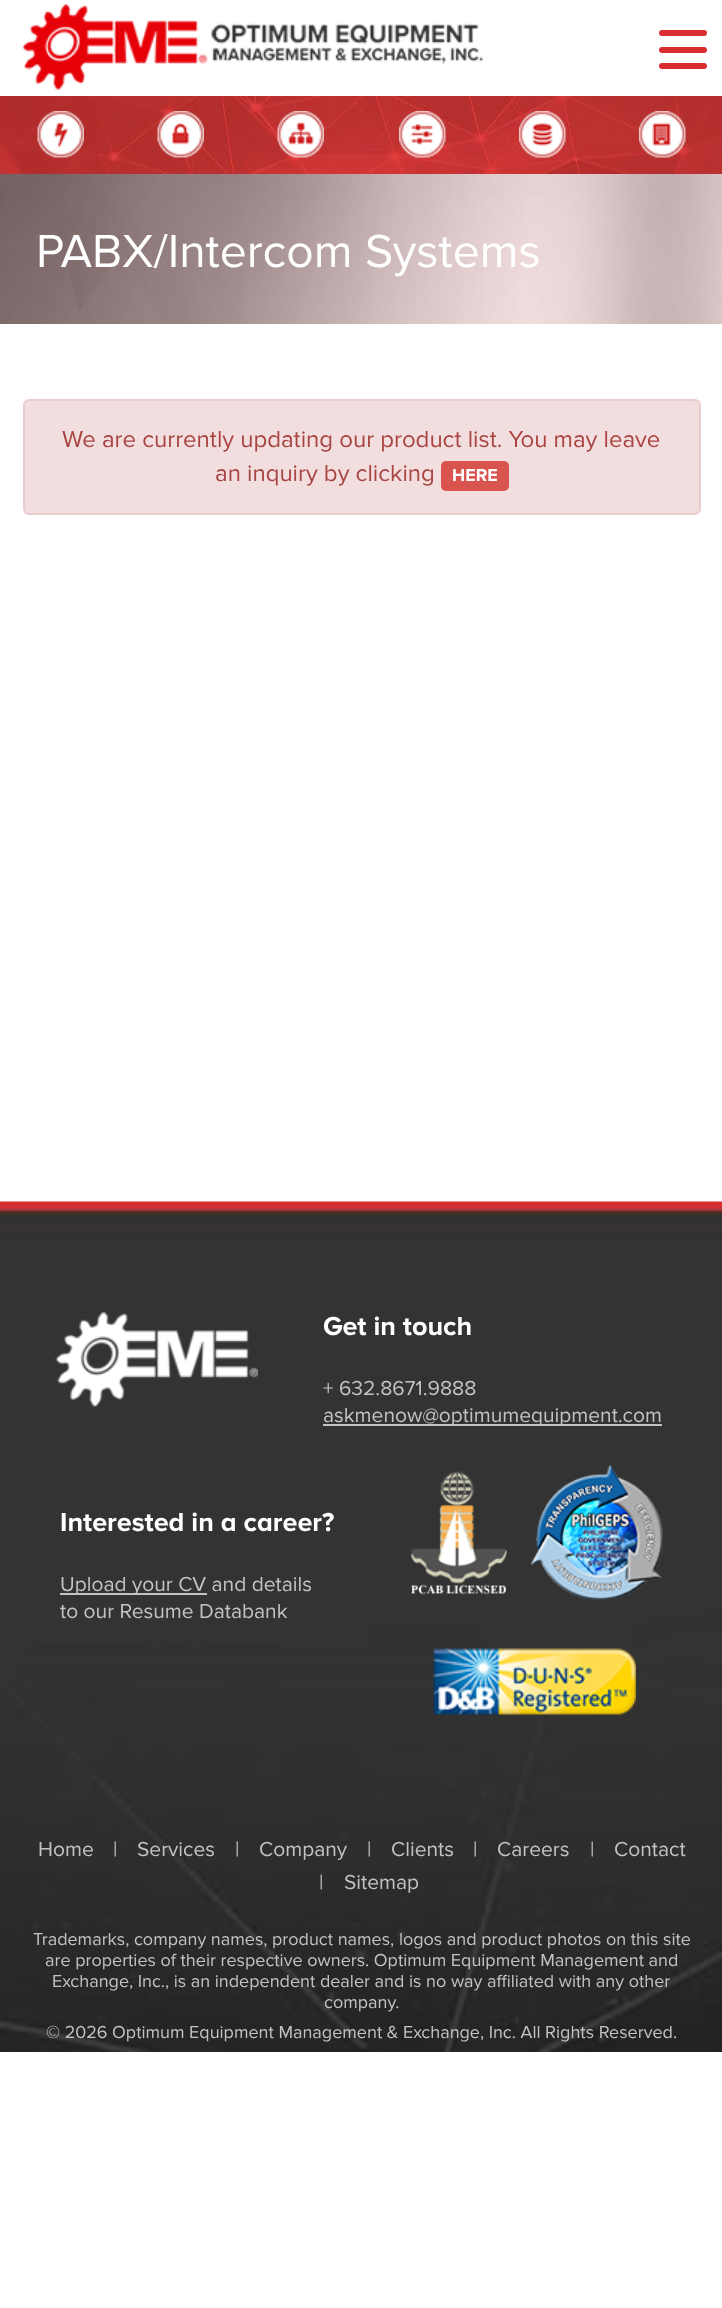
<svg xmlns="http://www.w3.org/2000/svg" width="722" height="2308">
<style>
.a{font:48px Proxima Nova;fill:#fff}
.b{font:24px Proxima Nova;fill:#a94442}
.c{font:bold 18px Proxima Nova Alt;fill:#fff}
.d{font:bold 27px Proxima Nova Alt;fill:#fff}
.e{font:21px Proxima Nova;fill:#c3c3c3}
.f{font:18px Proxima Nova;fill:#c3c3c3}
</style>
<rect width="100%" height="100%" fill="#fff"/>
<image href="1.png" x="22" y="4" width="461" height="86"/>
<rect fill="#d92d31" x="659" y="30" width="48" height="6" rx="3"/>
<rect fill="#d92d31" x="659" y="47" width="48" height="6" rx="3"/>
<rect fill="#d92d31" x="659" y="63" width="48" height="6" rx="3"/>
<image href="2.png" x="0" y="96" width="722" height="78"/>
<image href="3.png" x="37" y="111" width="47" height="47"/>
<image href="4.png" x="157" y="111" width="47" height="47"/>
<image href="5.png" x="277" y="111" width="47" height="47"/>
<image href="6.png" x="399" y="111" width="47" height="47"/>
<image href="7.png" x="519" y="111" width="47" height="47"/>
<image href="8.png" x="639" y="111" width="47" height="47"/>
<image href="9.png" x="0" y="174" width="722" height="150"/>
<rect fill="#f2dede" stroke="#ebccd1" stroke-width="2" x="24" y="400" width="676" height="114" rx="5"/>
<rect fill="#d9534f" x="441" y="461" width="68" height="30" rx="5"/>
<image href="10.png" x="0" y="1201" width="722" height="851"/>
<image href="11.png" x="55" y="1312" width="203" height="95"/>
<path fill="#c3c3c3" d="M323 1424h339v2H323z"/>
<path fill="#c3c3c3" d="M60 1593h147v2H60z"/>
<image href="12.png" x="411" y="1471" width="96" height="124"/>
<image href="13.png" x="531" y="1465" width="132" height="136"/>
<image href="14.png" x="433" y="1648" width="203" height="67"/>
<text class="a" x="36" y="267">PABX/Intercom Systems</text>
<text class="b" x="62" y="447">We are currently updating our product list. You may leave</text>
<text class="b" x="215" y="481">an inquiry by clicking</text>
<text class="c" x="452" y="481">HERE</text>
<text class="d" x="323" y="1335">Get in touch</text>
<text class="e" x="323" y="1395">+ 632.8671.9888</text>
<text class="e" x="323" y="1422">askmenow@optimumequipment.com</text>
<text class="d" x="60" y="1531">Interested in a career?</text>
<text class="e" x="60" y="1591">Upload your CV and details</text>
<text class="e" x="60" y="1618">to our Resume Databank</text>
<text class="e" x="38" y="1856">Home</text>
<text class="e" x="113" y="1856">|</text>
<text class="e" x="137" y="1856">Services</text>
<text class="e" x="235" y="1856">|</text>
<text class="e" x="259" y="1856">Company</text>
<text class="e" x="367" y="1856">|</text>
<text class="e" x="391" y="1856">Clients</text>
<text class="e" x="473" y="1856">|</text>
<text class="e" x="497" y="1856">Careers</text>
<text class="e" x="590" y="1856">|</text>
<text class="e" x="614" y="1856">Contact</text>
<text class="e" x="319" y="1889">|</text>
<text class="e" x="344" y="1889">Sitemap</text>
<text class="f" x="33" y="1945">Trademarks, company names, product names, logos and product photos on this site</text>
<text class="f" x="45" y="1966">are properties of their respective owners. Optimum Equipment Management and</text>
<text class="f" x="52" y="1987">Exchange, Inc., is an independent dealer and is no way affiliated with any other</text>
<text class="f" x="324" y="2008">company.</text>
<text class="f" x="46" y="2038">© 2026 Optimum Equipment Management &amp; Exchange, Inc. All Rights Reserved.</text>
</svg>
